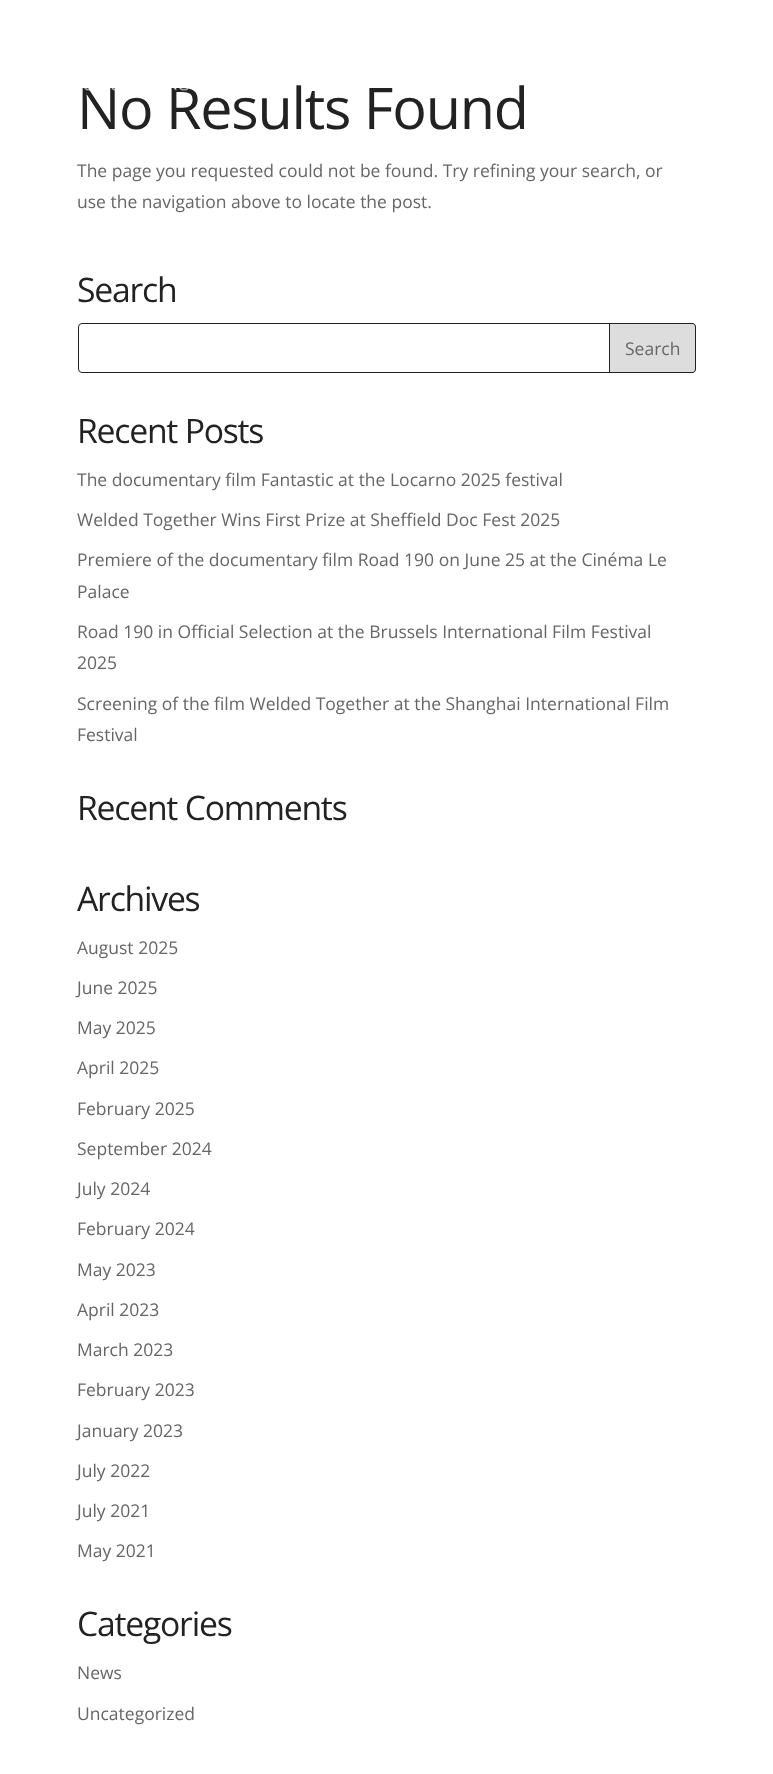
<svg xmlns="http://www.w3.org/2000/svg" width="773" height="1774">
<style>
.a{font:57.5px Open Sans;letter-spacing:-1.25px;fill:#222}
.b{font:17.5px Open Sans;fill:#666}
.c{font:33.75px Open Sans;letter-spacing:-1.25px;fill:#222}
</style>
<rect width="100%" height="100%" fill="#fff"/>
<rect fill="none" stroke="#222" x="78.5" y="323.5" width="617" height="49" rx="3.5"/>
<path fill="#ddd" stroke="#222" d="M609.5 323.5h82.5c2 0 3.5 1.5 3.5 3.5v42c0 2-1.5 3.5-3.5 3.5h-82.5z"/>
<text class="a" x="77" y="129">No Results Found</text>
<text class="b" x="77" y="177">The page you requested could not be found. Try refining your search, or</text>
<text class="b" x="77" y="208">use the navigation above to locate the post.</text>
<text class="c" x="77" y="302">Search</text>
<text class="b" x="625" y="355">Search</text>
<text class="c" x="77" y="443">Recent Posts</text>
<text class="b" x="77" y="486">The documentary film Fantastic at the Locarno 2025 festival</text>
<text class="b" x="77" y="526">Welded Together Wins First Prize at Sheffield Doc Fest 2025</text>
<text class="b" x="77" y="566">Premiere of the documentary film Road 190 on June 25 at the Cinéma Le</text>
<text class="b" x="77" y="598">Palace</text>
<text class="b" x="77" y="638">Road 190 in Official Selection at the Brussels International Film Festival</text>
<text class="b" x="77" y="669">2025</text>
<text class="b" x="77" y="710">Screening of the film Welded Together at the Shanghai International Film</text>
<text class="b" x="77" y="741">Festival</text>
<text class="c" x="77" y="820">Recent Comments</text>
<text class="c" x="77" y="911">Archives</text>
<text class="b" x="77" y="954">August 2025</text>
<text class="b" x="77" y="994">June 2025</text>
<text class="b" x="77" y="1034">May 2025</text>
<text class="b" x="77" y="1074">April 2025</text>
<text class="b" x="77" y="1115">February 2025</text>
<text class="b" x="77" y="1155">September 2024</text>
<text class="b" x="77" y="1195">July 2024</text>
<text class="b" x="77" y="1235">February 2024</text>
<text class="b" x="77" y="1276">May 2023</text>
<text class="b" x="77" y="1316">April 2023</text>
<text class="b" x="77" y="1356">March 2023</text>
<text class="b" x="77" y="1396">February 2023</text>
<text class="b" x="77" y="1437">January 2023</text>
<text class="b" x="77" y="1477">July 2022</text>
<text class="b" x="77" y="1517">July 2021</text>
<text class="b" x="77" y="1557">May 2021</text>
<text class="c" x="77" y="1636">Categories</text>
<text class="b" x="77" y="1679">News</text>
<text class="b" x="77" y="1720">Uncategorized</text>
<image href="1.png" x="84" y="87" width="105" height="4"/>
</svg>
